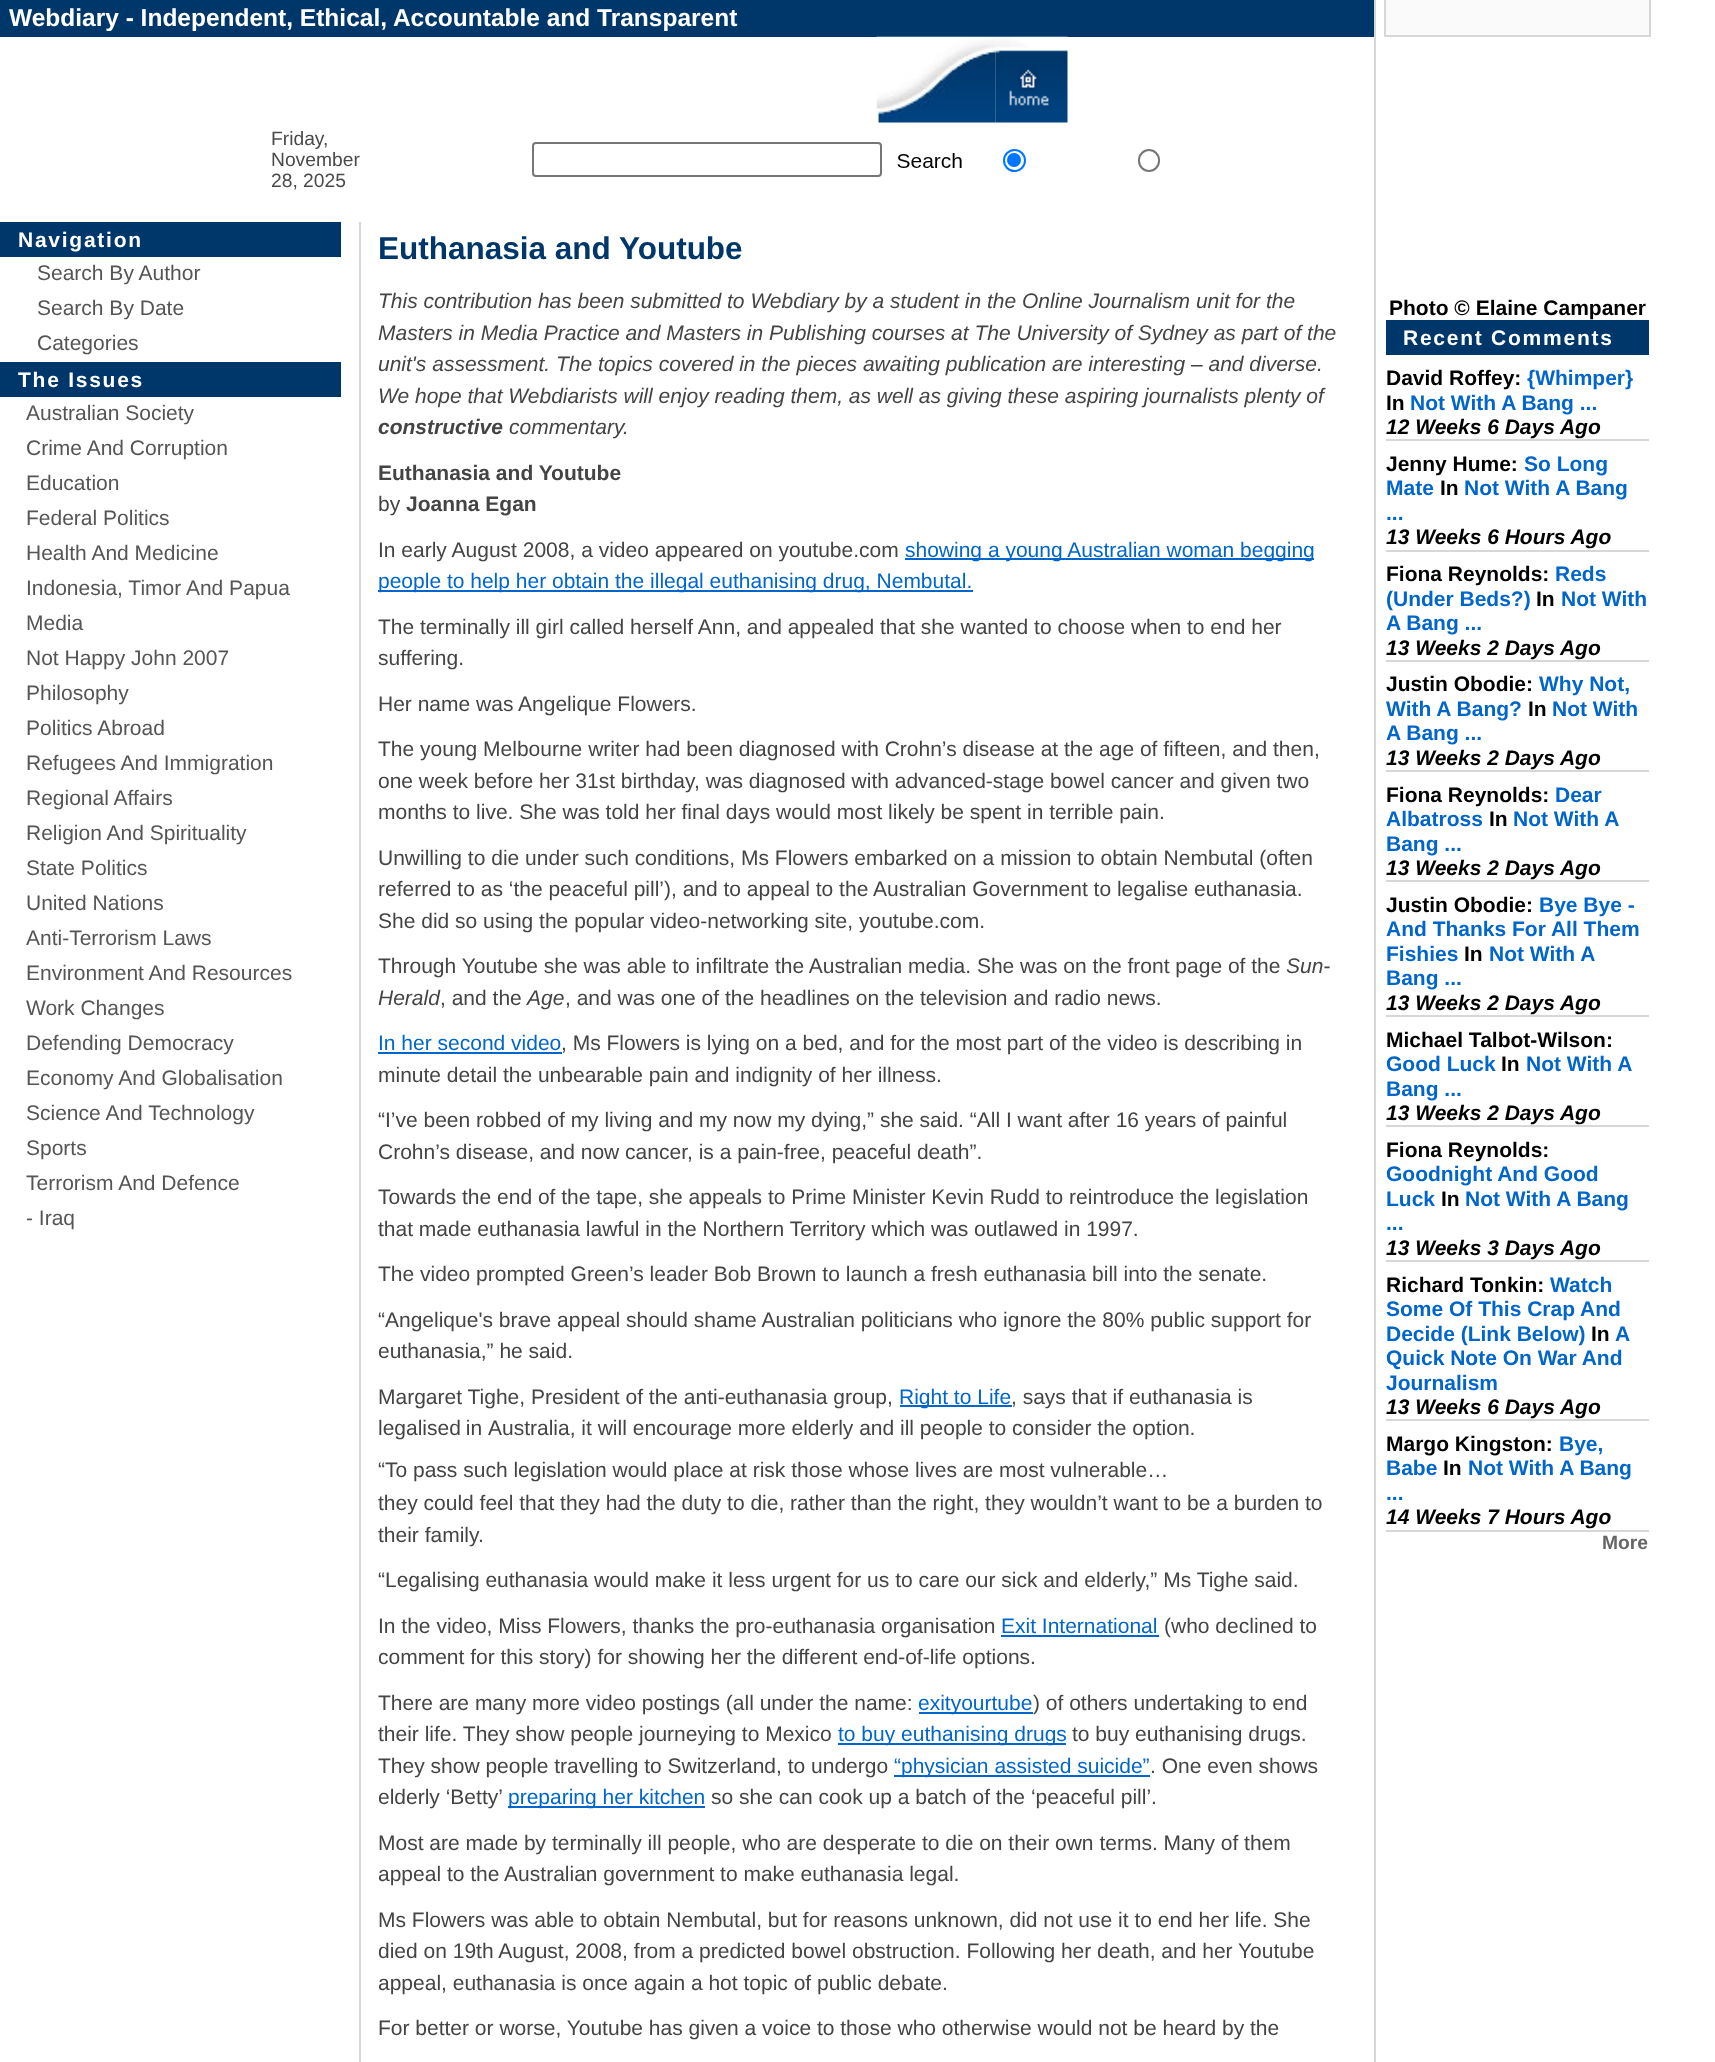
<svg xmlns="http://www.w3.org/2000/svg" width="1715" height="2062">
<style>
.a{font:bold 24.5px Liberation Sans;fill:#fff}
.b{font:19.25px Liberation Sans;fill:#4a4a4a}
.c{font:bold 21px Liberation Sans;letter-spacing:1.75px;fill:#fff}
.d{font:21px Liberation Sans;fill:#555}
.e{font:bold 31.5px Liberation Sans;fill:#00376a}
.f{font:italic 21px Liberation Sans;fill:#444}
.g{font:italic bold 21px Liberation Sans;fill:#444}
.h{font:bold 21px Liberation Sans;fill:#444}
.i{font:21px Liberation Sans;fill:#444}
.j{font:21px Liberation Sans;fill:#06c}
.k{font:bold 21px Liberation Sans;fill:#000}
.l{font:bold 21px Liberation Sans;fill:#06c}
.m{font:italic bold 21px Liberation Sans;fill:#000}
.n{font:bold 19.25px Liberation Sans;fill:#666}
</style>
<rect width="100%" height="100%" fill="#fff"/>
<path fill="#d7d7d7" d="M1374 0h2v2062H1374z"/>
<path fill="#00376a" d="M0 0h1374v37H0z"/>
<image href="1.png" x="876" y="36" width="120" height="88"/>
<image href="2.png" x="995" y="36" width="73" height="87"/>
<rect fill="none" stroke="#767676" stroke-width="2" x="533" y="143" width="348" height="33" rx="3"/>
<image href="3.png" x="897" y="153" width="65" height="15"/>
<circle fill="none" stroke="#0075ff" stroke-width="2" cx="1014.5" cy="160.5" r="10.5"/>
<circle fill="#0075ff" cx="1014" cy="160" r="7"/>
<rect fill="none" stroke="#767676" stroke-width="2" x="1139" y="150" width="20" height="21" rx="10"/>
<path fill="#d7d7d7" d="M359 222h2v1840H359z"/>
<path fill="#00376a" d="M0 222h341v35H0z"/>
<path fill="#00376a" d="M0 362h341v35H0z"/>
<path fill="#06c" d="M905 558h409v2H905z"/>
<path fill="#06c" d="M378 590h595v2H378z"/>
<path fill="#06c" d="M378 1052h184v2H378z"/>
<path fill="#06c" d="M900 1405h112v2H900z"/>
<path fill="#06c" d="M1001 1635h158v2H1001z"/>
<path fill="#06c" d="M919 1712h114v2H919z"/>
<path fill="#06c" d="M838 1743h228v2H838z"/>
<path fill="#06c" d="M894 1775h256v2H894z"/>
<path fill="#06c" d="M508 1806h197v2H508z"/>
<path fill="#fafafa" d="M1386 0h263v35H1386z"/>
<path fill="#d7d7d7" d="M1649 0h2v37H1649z"/>
<path fill="#d7d7d7" d="M1384 35h266v2H1384z"/>
<path fill="#d7d7d7" d="M1384 0h2v37H1384z"/>
<path fill="#00376a" d="M1386 320h263v35H1386z"/>
<path fill="#d7d7d7" d="M1386 439h263v2H1386z"/>
<path fill="#d7d7d7" d="M1386 550h263v2H1386z"/>
<path fill="#d7d7d7" d="M1386 660h263v2H1386z"/>
<path fill="#d7d7d7" d="M1386 770h263v2H1386z"/>
<path fill="#d7d7d7" d="M1386 880h263v2H1386z"/>
<path fill="#d7d7d7" d="M1386 1015h263v2H1386z"/>
<path fill="#d7d7d7" d="M1386 1125h263v2H1386z"/>
<path fill="#d7d7d7" d="M1386 1260h263v2H1386z"/>
<path fill="#d7d7d7" d="M1386 1419h263v2H1386z"/>
<path fill="#d7d7d7" d="M1386 1530h263v2H1386z"/>
<text class="a" x="9" y="26">Webdiary - Independent, Ethical, Accountable and Transparent</text>
<text class="b" x="271" y="145">Friday,</text>
<text class="b" x="271" y="166">November</text>
<text class="b" x="271" y="187">28, 2025</text>
<text class="c" x="18" y="247">Navigation</text>
<text class="d" x="37" y="280">Search By Author</text>
<text class="d" x="37" y="315">Search By Date</text>
<text class="d" x="37" y="350">Categories</text>
<text class="c" x="18" y="387">The Issues</text>
<text class="d" x="26" y="420">Australian Society</text>
<text class="d" x="26" y="455">Crime And Corruption</text>
<text class="d" x="26" y="490">Education</text>
<text class="d" x="26" y="525">Federal Politics</text>
<text class="d" x="26" y="560">Health And Medicine</text>
<text class="d" x="26" y="595">Indonesia, Timor And Papua</text>
<text class="d" x="26" y="630">Media</text>
<text class="d" x="26" y="665">Not Happy John 2007</text>
<text class="d" x="26" y="700">Philosophy</text>
<text class="d" x="26" y="735">Politics Abroad</text>
<text class="d" x="26" y="770">Refugees And Immigration</text>
<text class="d" x="26" y="805">Regional Affairs</text>
<text class="d" x="26" y="840">Religion And Spirituality</text>
<text class="d" x="26" y="875">State Politics</text>
<text class="d" x="26" y="910">United Nations</text>
<text class="d" x="26" y="945">Anti-Terrorism Laws</text>
<text class="d" x="26" y="980">Environment And Resources</text>
<text class="d" x="26" y="1015">Work Changes</text>
<text class="d" x="26" y="1050">Defending Democracy</text>
<text class="d" x="26" y="1085">Economy And Globalisation</text>
<text class="d" x="26" y="1120">Science And Technology</text>
<text class="d" x="26" y="1155">Sports</text>
<text class="d" x="26" y="1190">Terrorism And Defence</text>
<text class="d" x="26" y="1225">- Iraq</text>
<text class="e" x="378" y="259">Euthanasia and Youtube</text>
<text class="f" x="378" y="308">This contribution has been submitted to Webdiary by a student in the Online Journalism unit for the</text>
<text class="f" x="378" y="340">Masters in Media Practice and Masters in Publishing courses at The University of Sydney as part of the</text>
<text class="f" x="378" y="371">unit's assessment. The topics covered in the pieces awaiting publication are interesting – and diverse.</text>
<text class="f" x="378" y="403">We hope that Webdiarists will enjoy reading them, as well as giving these aspiring journalists plenty of</text>
<text class="g" x="378" y="434">constructive</text>
<text class="f" x="509" y="434">commentary.</text>
<text class="h" x="378" y="480">Euthanasia and Youtube</text>
<text class="i" x="378" y="511">by</text>
<text class="h" x="406" y="511">Joanna Egan</text>
<text class="i" x="378" y="557">In early August 2008, a video appeared on youtube.com</text>
<text class="j" x="905" y="557">showing a young Australian woman begging</text>
<text class="j" x="378" y="588">people to help her obtain the illegal euthanising drug, Nembutal.</text>
<text class="i" x="378" y="634">The terminally ill girl called herself Ann, and appealed that she wanted to choose when to end her</text>
<text class="i" x="378" y="665">suffering.</text>
<text class="i" x="378" y="711">Her name was Angelique Flowers.</text>
<text class="i" x="378" y="756">The young Melbourne writer had been diagnosed with Crohn’s disease at the age of fifteen, and then,</text>
<text class="i" x="378" y="788">one week before her 31st birthday, was diagnosed with advanced-stage bowel cancer and given two</text>
<text class="i" x="378" y="819">months to live. She was told her final days would most likely be spent in terrible pain.</text>
<text class="i" x="378" y="865">Unwilling to die under such conditions, Ms Flowers embarked on a mission to obtain Nembutal (often</text>
<text class="i" x="378" y="896">referred to as ‘the peaceful pill’), and to appeal to the Australian Government to legalise euthanasia.</text>
<text class="i" x="378" y="928">She did so using the popular video-networking site, youtube.com.</text>
<text class="i" x="378" y="973">Through Youtube she was able to infiltrate the Australian media. She was on the front page of the</text>
<text class="f" x="1286" y="973">Sun-</text>
<text class="f" x="378" y="1005">Herald</text>
<text class="i" x="440" y="1005">, and the</text>
<text class="f" x="527" y="1005">Age</text>
<text class="i" x="565" y="1005">, and was one of the headlines on the television and radio news.</text>
<text class="j" x="378" y="1050">In her second video</text>
<text class="i" x="561" y="1050">, Ms Flowers is lying on a bed, and for the most part of the video is describing in</text>
<text class="i" x="378" y="1082">minute detail the unbearable pain and indignity of her illness.</text>
<text class="i" x="378" y="1127">“I’ve been robbed of my living and my now my dying,” she said. “All I want after 16 years of painful</text>
<text class="i" x="378" y="1159">Crohn’s disease, and now cancer, is a pain-free, peaceful death”.</text>
<text class="i" x="378" y="1204">Towards the end of the tape, she appeals to Prime Minister Kevin Rudd to reintroduce the legislation</text>
<text class="i" x="378" y="1236">that made euthanasia lawful in the Northern Territory which was outlawed in 1997.</text>
<text class="i" x="378" y="1281">The video prompted Green’s leader Bob Brown to launch a fresh euthanasia bill into the senate.</text>
<text class="i" x="378" y="1327">“Angelique's brave appeal should shame Australian politicians who ignore the 80% public support for</text>
<text class="i" x="378" y="1358">euthanasia,” he said.</text>
<text class="i" x="378" y="1404">Margaret Tighe, President of the anti-euthanasia group,</text>
<text class="j" x="899" y="1404">Right to Life</text>
<text class="i" x="1011" y="1404">, says that if euthanasia is</text>
<text class="i" x="378" y="1435" word-spacing="-1">legalised in</text>
<text class="i" x="488" y="1435">Australia, it will encourage more elderly and ill people to consider the option.</text>
<text class="i" x="378" y="1477">“To pass such legislation would place at risk those whose lives are most vulnerable…</text>
<text class="i" x="378" y="1510">they could feel that they had the duty to die, rather than the right, they wouldn’t want to be a burden to</text>
<text class="i" x="378" y="1542">their family.</text>
<text class="i" x="378" y="1587">“Legalising euthanasia would make it less urgent for us to care our sick and elderly,” Ms Tighe said.</text>
<text class="i" x="378" y="1633">In the video, Miss Flowers, thanks the pro-euthanasia organisation</text>
<text class="j" x="1001" y="1633">Exit International</text>
<text class="i" x="1164" y="1633">(who declined to</text>
<text class="i" x="378" y="1664">comment for this story) for showing her the different end-of-life options.</text>
<text class="i" x="378" y="1710">There are many more video postings (all under the name:</text>
<text class="j" x="918" y="1710">exityourtube</text>
<text class="i" x="1033" y="1710">) of others undertaking to end</text>
<text class="i" x="378" y="1741">their life. They show people journeying to Mexico</text>
<text class="j" x="838" y="1741">to buy euthanising drugs</text>
<text class="i" x="1072" y="1741">to buy euthanising drugs.</text>
<text class="i" x="378" y="1773">They show people travelling to Switzerland, to undergo</text>
<text class="j" x="894" y="1773">“physician assisted suicide”</text>
<text class="i" x="1150" y="1773">. One even shows</text>
<text class="i" x="378" y="1804">elderly ‘Betty’</text>
<text class="j" x="508" y="1804">preparing her kitchen</text>
<text class="i" x="711" y="1804">so she can cook up a batch of the ‘peaceful pill’.</text>
<text class="i" x="378" y="1850">Most are made by terminally ill people, who are desperate to die on their own terms. Many of them</text>
<text class="i" x="378" y="1881">appeal to the Australian government to make euthanasia legal.</text>
<text class="i" x="378" y="1927">Ms Flowers was able to obtain Nembutal, but for reasons unknown, did not use it to end her life. She</text>
<text class="i" x="378" y="1958">died on 19th August, 2008, from a predicted bowel obstruction. Following her death, and her Youtube</text>
<text class="i" x="378" y="1990">appeal, euthanasia is once again a hot topic of public debate.</text>
<text class="i" x="378" y="2035">For better or worse, Youtube has given a voice to those who otherwise would not be heard by the</text>
<text class="k" x="1389" y="315">Photo © Elaine Campaner</text>
<text class="c" x="1403" y="345">Recent Comments</text>
<text class="k" x="1386" y="385">David Roffey:</text>
<text class="l" x="1527" y="385">{Whimper}</text>
<text class="k" x="1386" y="410">In</text>
<text class="l" x="1410" y="410">Not With A Bang ...</text>
<text class="m" x="1386" y="434">12 Weeks 6 Days Ago</text>
<text class="k" x="1386" y="471">Jenny Hume:</text>
<text class="l" x="1524" y="471">So Long</text>
<text class="l" x="1386" y="495">Mate</text>
<text class="k" x="1440" y="495">In</text>
<text class="l" x="1464" y="495">Not With A Bang</text>
<text class="l" x="1386" y="520">...</text>
<text class="m" x="1386" y="544">13 Weeks 6 Hours Ago</text>
<text class="k" x="1386" y="581">Fiona Reynolds:</text>
<text class="l" x="1555" y="581">Reds</text>
<text class="l" x="1386" y="606">(Under Beds?)</text>
<text class="k" x="1536" y="606">In</text>
<text class="l" x="1561" y="606">Not With</text>
<text class="l" x="1386" y="630">A Bang ...</text>
<text class="m" x="1386" y="655">13 Weeks 2 Days Ago</text>
<text class="k" x="1386" y="691">Justin Obodie:</text>
<text class="l" x="1539" y="691">Why Not,</text>
<text class="l" x="1386" y="716">With A Bang?</text>
<text class="k" x="1528" y="716">In</text>
<text class="l" x="1552" y="716">Not With</text>
<text class="l" x="1386" y="740">A Bang ...</text>
<text class="m" x="1386" y="765">13 Weeks 2 Days Ago</text>
<text class="k" x="1386" y="802">Fiona Reynolds:</text>
<text class="l" x="1555" y="802">Dear</text>
<text class="l" x="1386" y="826">Albatross</text>
<text class="k" x="1489" y="826">In</text>
<text class="l" x="1513" y="826">Not With A</text>
<text class="l" x="1386" y="851">Bang ...</text>
<text class="m" x="1386" y="875">13 Weeks 2 Days Ago</text>
<text class="k" x="1386" y="912">Justin Obodie:</text>
<text class="l" x="1539" y="912">Bye Bye -</text>
<text class="l" x="1386" y="936">And Thanks For All Them</text>
<text class="l" x="1386" y="961">Fishies</text>
<text class="k" x="1464" y="961">In</text>
<text class="l" x="1489" y="961">Not With A</text>
<text class="l" x="1386" y="985">Bang ...</text>
<text class="m" x="1386" y="1010">13 Weeks 2 Days Ago</text>
<text class="k" x="1386" y="1047">Michael Talbot-Wilson:</text>
<text class="l" x="1386" y="1071">Good Luck</text>
<text class="k" x="1501" y="1071">In</text>
<text class="l" x="1526" y="1071">Not With A</text>
<text class="l" x="1386" y="1096">Bang ...</text>
<text class="m" x="1386" y="1120">13 Weeks 2 Days Ago</text>
<text class="k" x="1386" y="1157">Fiona Reynolds:</text>
<text class="l" x="1386" y="1181">Goodnight And Good</text>
<text class="l" x="1386" y="1206">Luck</text>
<text class="k" x="1441" y="1206">In</text>
<text class="l" x="1465" y="1206">Not With A Bang</text>
<text class="l" x="1386" y="1230">...</text>
<text class="m" x="1386" y="1255">13 Weeks 3 Days Ago</text>
<text class="k" x="1386" y="1292">Richard Tonkin:</text>
<text class="l" x="1550" y="1292">Watch</text>
<text class="l" x="1386" y="1316">Some Of This Crap And</text>
<text class="l" x="1386" y="1341">Decide (Link Below)</text>
<text class="k" x="1591" y="1341">In</text>
<text class="l" x="1615" y="1341">A</text>
<text class="l" x="1386" y="1365">Quick Note On War And</text>
<text class="l" x="1386" y="1390">Journalism</text>
<text class="m" x="1386" y="1414">13 Weeks 6 Days Ago</text>
<text class="k" x="1386" y="1451">Margo Kingston:</text>
<text class="l" x="1559" y="1451">Bye,</text>
<text class="l" x="1386" y="1475">Babe</text>
<text class="k" x="1443" y="1475">In</text>
<text class="l" x="1468" y="1475">Not With A Bang</text>
<text class="l" x="1386" y="1500">...</text>
<text class="m" x="1386" y="1524">14 Weeks 7 Hours Ago</text>
<text class="n" x="1602" y="1549">More</text>
</svg>
